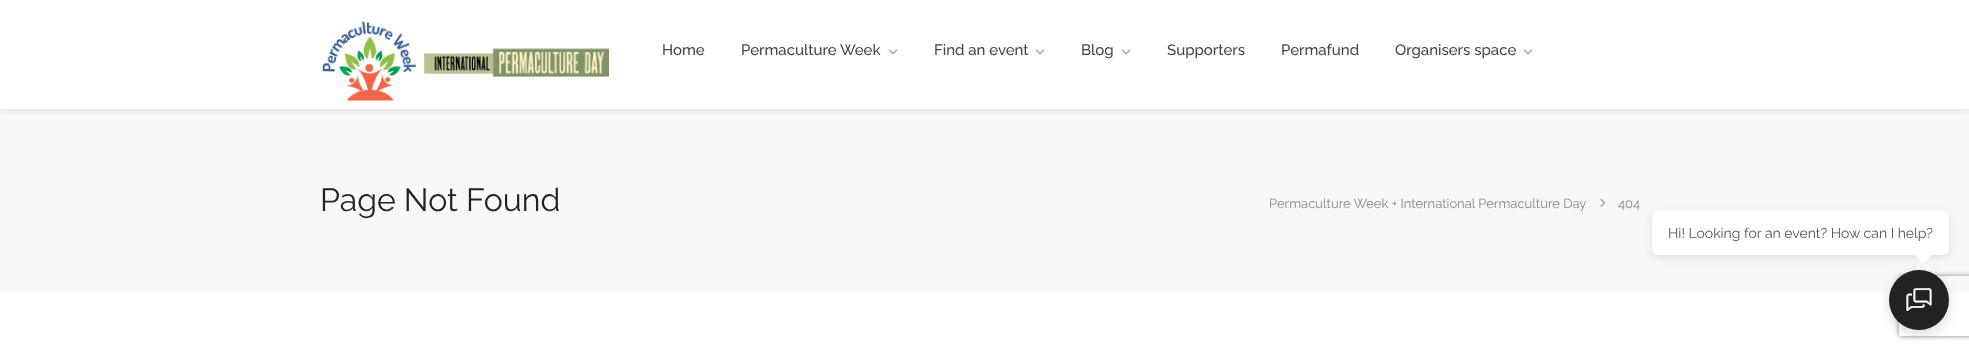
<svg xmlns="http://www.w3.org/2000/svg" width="1969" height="350">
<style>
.a{font:500 15px Raleway;fill:#444}
.b{font:100 32px Raleway;fill:#222}
.c{font:100 13px Raleway;fill:#888}
.d{font:100 14px Raleway;fill:#555}
</style>
<defs>
<clipPath id="clip1"><path d="M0 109h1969v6H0z"/></clipPath>
<clipPath id="clip2"><path d="M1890 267h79v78h-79zm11 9h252c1 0 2 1 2 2v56c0 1-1 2-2 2h-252c-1 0-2-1-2-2v-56c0-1 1-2 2-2z" clip-rule="evenodd"/></clipPath>
</defs>
<rect width="100%" height="100%" fill="#fff"/>
<path fill="#f8f8f8" d="M0 109h1969v184H0z"/>
<g clip-path="url(#clip1)">
<path fill="#0000001f" filter="blur(6px)" d="M0 0h1969v109H0z"/>
</g>
<image href="1.png" x="322" y="21" width="287" height="80"/>
<image href="2.png" x="888" y="49" width="10" height="6"/>
<image href="2.png" x="1035" y="49" width="10" height="6"/>
<image href="2.png" x="1121" y="49" width="10" height="6"/>
<image href="2.png" x="1523" y="49" width="10" height="6"/>
<image href="3.png" x="1600" y="198" width="6" height="9"/>
<rect fill="#0000001a" filter="blur(4px)" x="1652" y="214" width="297" height="44" rx="6"/>
<rect fill="#fff" x="1652" y="211" width="297" height="44" rx="6"/>
<path fill="#fff" d="M1923 246.5l8.5 8.5l-8.5 8.5l-8.5-8.5z"/>
<rect fill="#00000026" filter="blur(6px)" x="1889" y="274" width="60" height="60" rx="30"/>
<g clip-path="url(#clip2)">
<rect fill="#808080" filter="blur(2.5px)" x="1899" y="276" width="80" height="60" rx="2"/>
</g>
<circle fill="#222" cx="1919" cy="300" r="30"/>
<image href="4.png" x="1906" y="288" width="26" height="23"/>
<text class="a" x="662" y="55">Home</text>
<text class="a" x="741" y="55">Permaculture Week</text>
<text class="a" x="934" y="55">Find an event</text>
<text class="a" x="1081" y="55">Blog</text>
<text class="a" x="1167" y="55">Supporters</text>
<text class="a" x="1281" y="55">Permafund</text>
<text class="a" x="1395" y="55">Organisers space</text>
<text class="b" x="320" y="211">Page Not Found</text>
<text class="c" x="1269" y="208">Permaculture Week + International Permaculture Day</text>
<text class="c" x="1618" y="208">404</text>
<text class="d" x="1668" y="238">Hi! Looking for an event? How can I help?</text>
</svg>
